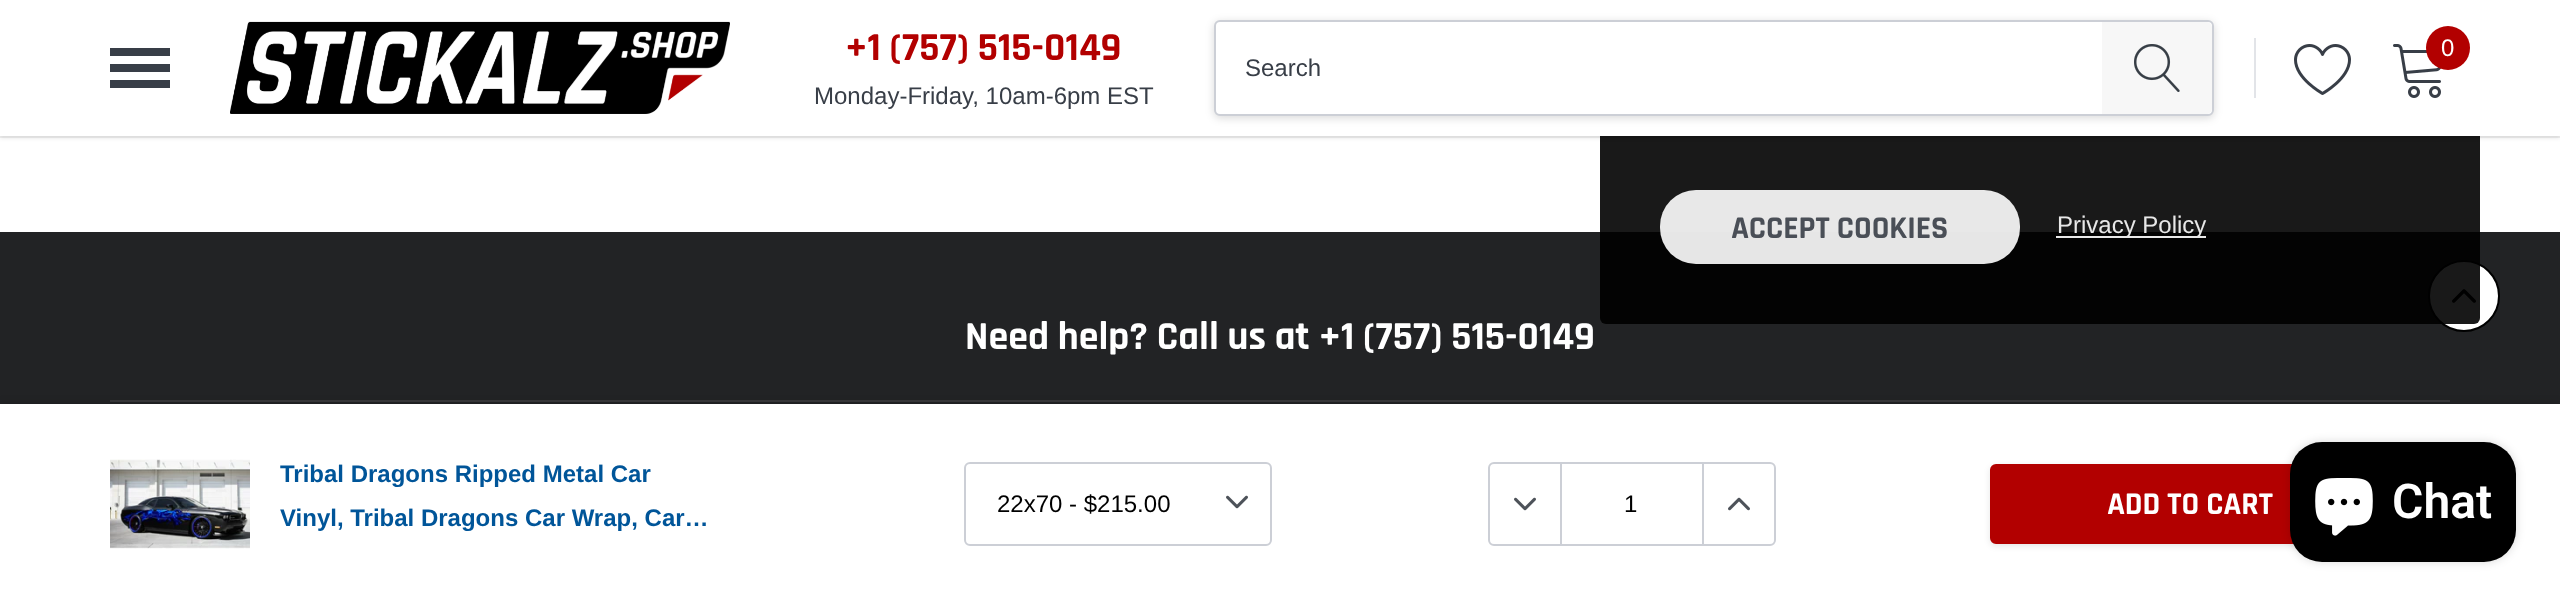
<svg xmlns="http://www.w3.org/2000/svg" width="2560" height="604">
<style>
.a{font:bold 40px Rajdhani;fill:#b20000}
.b{font:24px Arimo;fill:#383e47}
.c{font:24px Arimo;fill:#fff}
.d{font:bold 32px Rajdhani;fill:#4a4f57}
.e{font:24px Arimo;fill:#e8e8e8}
.f{font:bold 40px Rajdhani;fill:#fff}
.g{font:bold 24px Arimo;fill:#059}
.h{font:24px Arimo;fill:#000}
.i{font:bold 32px Rajdhani;fill:#fff}
.j{font:600 48px Roboto;fill:#fff}
</style>
<rect width="100%" height="100%" fill="#fff"/>
<path fill="#222325" d="M0 232h2560v172H0z"/>
<circle fill="#fff" stroke="#000" stroke-width="2" cx="2464" cy="296" r="35"/>
<image href="5.png" x="2452" y="289" width="24" height="14"/>
<rect fill="#000000e6" x="1600" y="-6" width="880" height="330" rx="6"/>
<path fill="#0000001a" filter="blur(2px)" d="M0 2h2560v136H0z"/>
<path fill="none" stroke="#0000000f" stroke-width="2" d="M-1 -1h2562v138H-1z"/>
<path fill="#fff" d="M0 0h2560v136H0z"/>
<path fill="#383e47" d="M110 64h60v8H110z"/>
<path fill="#383e47" d="M110 48h60v8H110z"/>
<path fill="#383e47" d="M110 80h60v8H110z"/>
<image href="1.png" x="230" y="21" width="500" height="93"/>
<path fill="#e2e4e8" d="M2254 38h2v60H2254z"/>
<image href="2.png" x="2294" y="44" width="57" height="51"/>
<image href="3.png" x="2393" y="44" width="48" height="54"/>
<circle fill="#b20000" cx="2448" cy="48" r="22"/>
<rect fill="#00000026" filter="blur(4px)" x="1214" y="22" width="1000" height="96" rx="6"/>
<rect fill="#fff" stroke="#cccfd6" stroke-width="2" x="1215" y="21" width="998" height="94" rx="5"/>
<path fill="#f7f7f7" d="M2102 22h104c3.5 0 6 2.5 6 6v80c0 3.5-2.5 6-6 6h-104z"/>
<image href="4.png" x="2134" y="44" width="46" height="48"/>
<rect fill="#ffffffe6" x="1660" y="190" width="360" height="74" rx="36"/>
<path fill="#e9e9e9" d="M2056 236h150v2H2056z"/>
<path fill="#39393b" d="M110 400h2340v2H110z"/>
<path fill="#00000033" filter="blur(4px)" d="M0 404h2560v200H0z"/>
<path fill="#fff" d="M0 404h2560v200H0z"/>
<image href="6.png" x="110" y="459" width="140" height="90"/>
<rect fill="none" stroke="#cccfd6" stroke-width="2" x="965" y="463" width="306" height="82" rx="5"/>
<image href="7.png" x="1226" y="495" width="22" height="14"/>
<rect fill="none" stroke="#cccfd6" stroke-width="2" x="1489" y="463" width="286" height="82" rx="5"/>
<path fill="#cccfd6" d="M1560 464h2v80H1560z"/>
<image href="7.png" x="1514" y="497" width="22" height="14"/>
<path fill="#cccfd6" d="M1702 464h2v80H1702z"/>
<image href="8.png" x="1728" y="497" width="22" height="14"/>
<rect fill="#0000001a" filter="blur(3px)" x="1990" y="466" width="400" height="80" rx="6"/>
<rect fill="#b20000" stroke="#b20000" stroke-width="2" x="1991" y="465" width="398" height="78" rx="5"/>
<rect fill="#00000026" filter="blur(5px)" x="2290" y="442" width="226" height="120" rx="32"/>
<rect fill="#000" x="2290" y="442" width="226" height="120" rx="32"/>
<image href="9.png" x="2315" y="478" width="58" height="58"/>
<text class="a" x="845" y="60">+1 (757) 515-0149</text>
<text class="b" x="814" y="104">Monday-Friday, 10am-6pm EST</text>
<text class="c" x="2441" y="56">0</text>
<text class="b" x="1245" y="76">Search</text>
<text class="d" x="1731" y="238">ACCEPT COOKIES</text>
<text class="e" x="2057" y="233">Privacy Policy</text>
<text class="f" x="965" y="349">Need help? Call us at +1 (757) 515-0149</text>
<text class="g" x="280" y="482">Tribal Dragons Ripped Metal Car</text>
<text class="g" x="280" y="526">Vinyl, Tribal Dragons Car Wrap, Car…</text>
<text class="h" x="997" y="512">22x70 - $215.00</text>
<text class="h" x="1624" y="512">1</text>
<text class="i" x="2107" y="514">ADD TO CART</text>
<text class="j" x="2392" y="518">Chat</text>
</svg>
